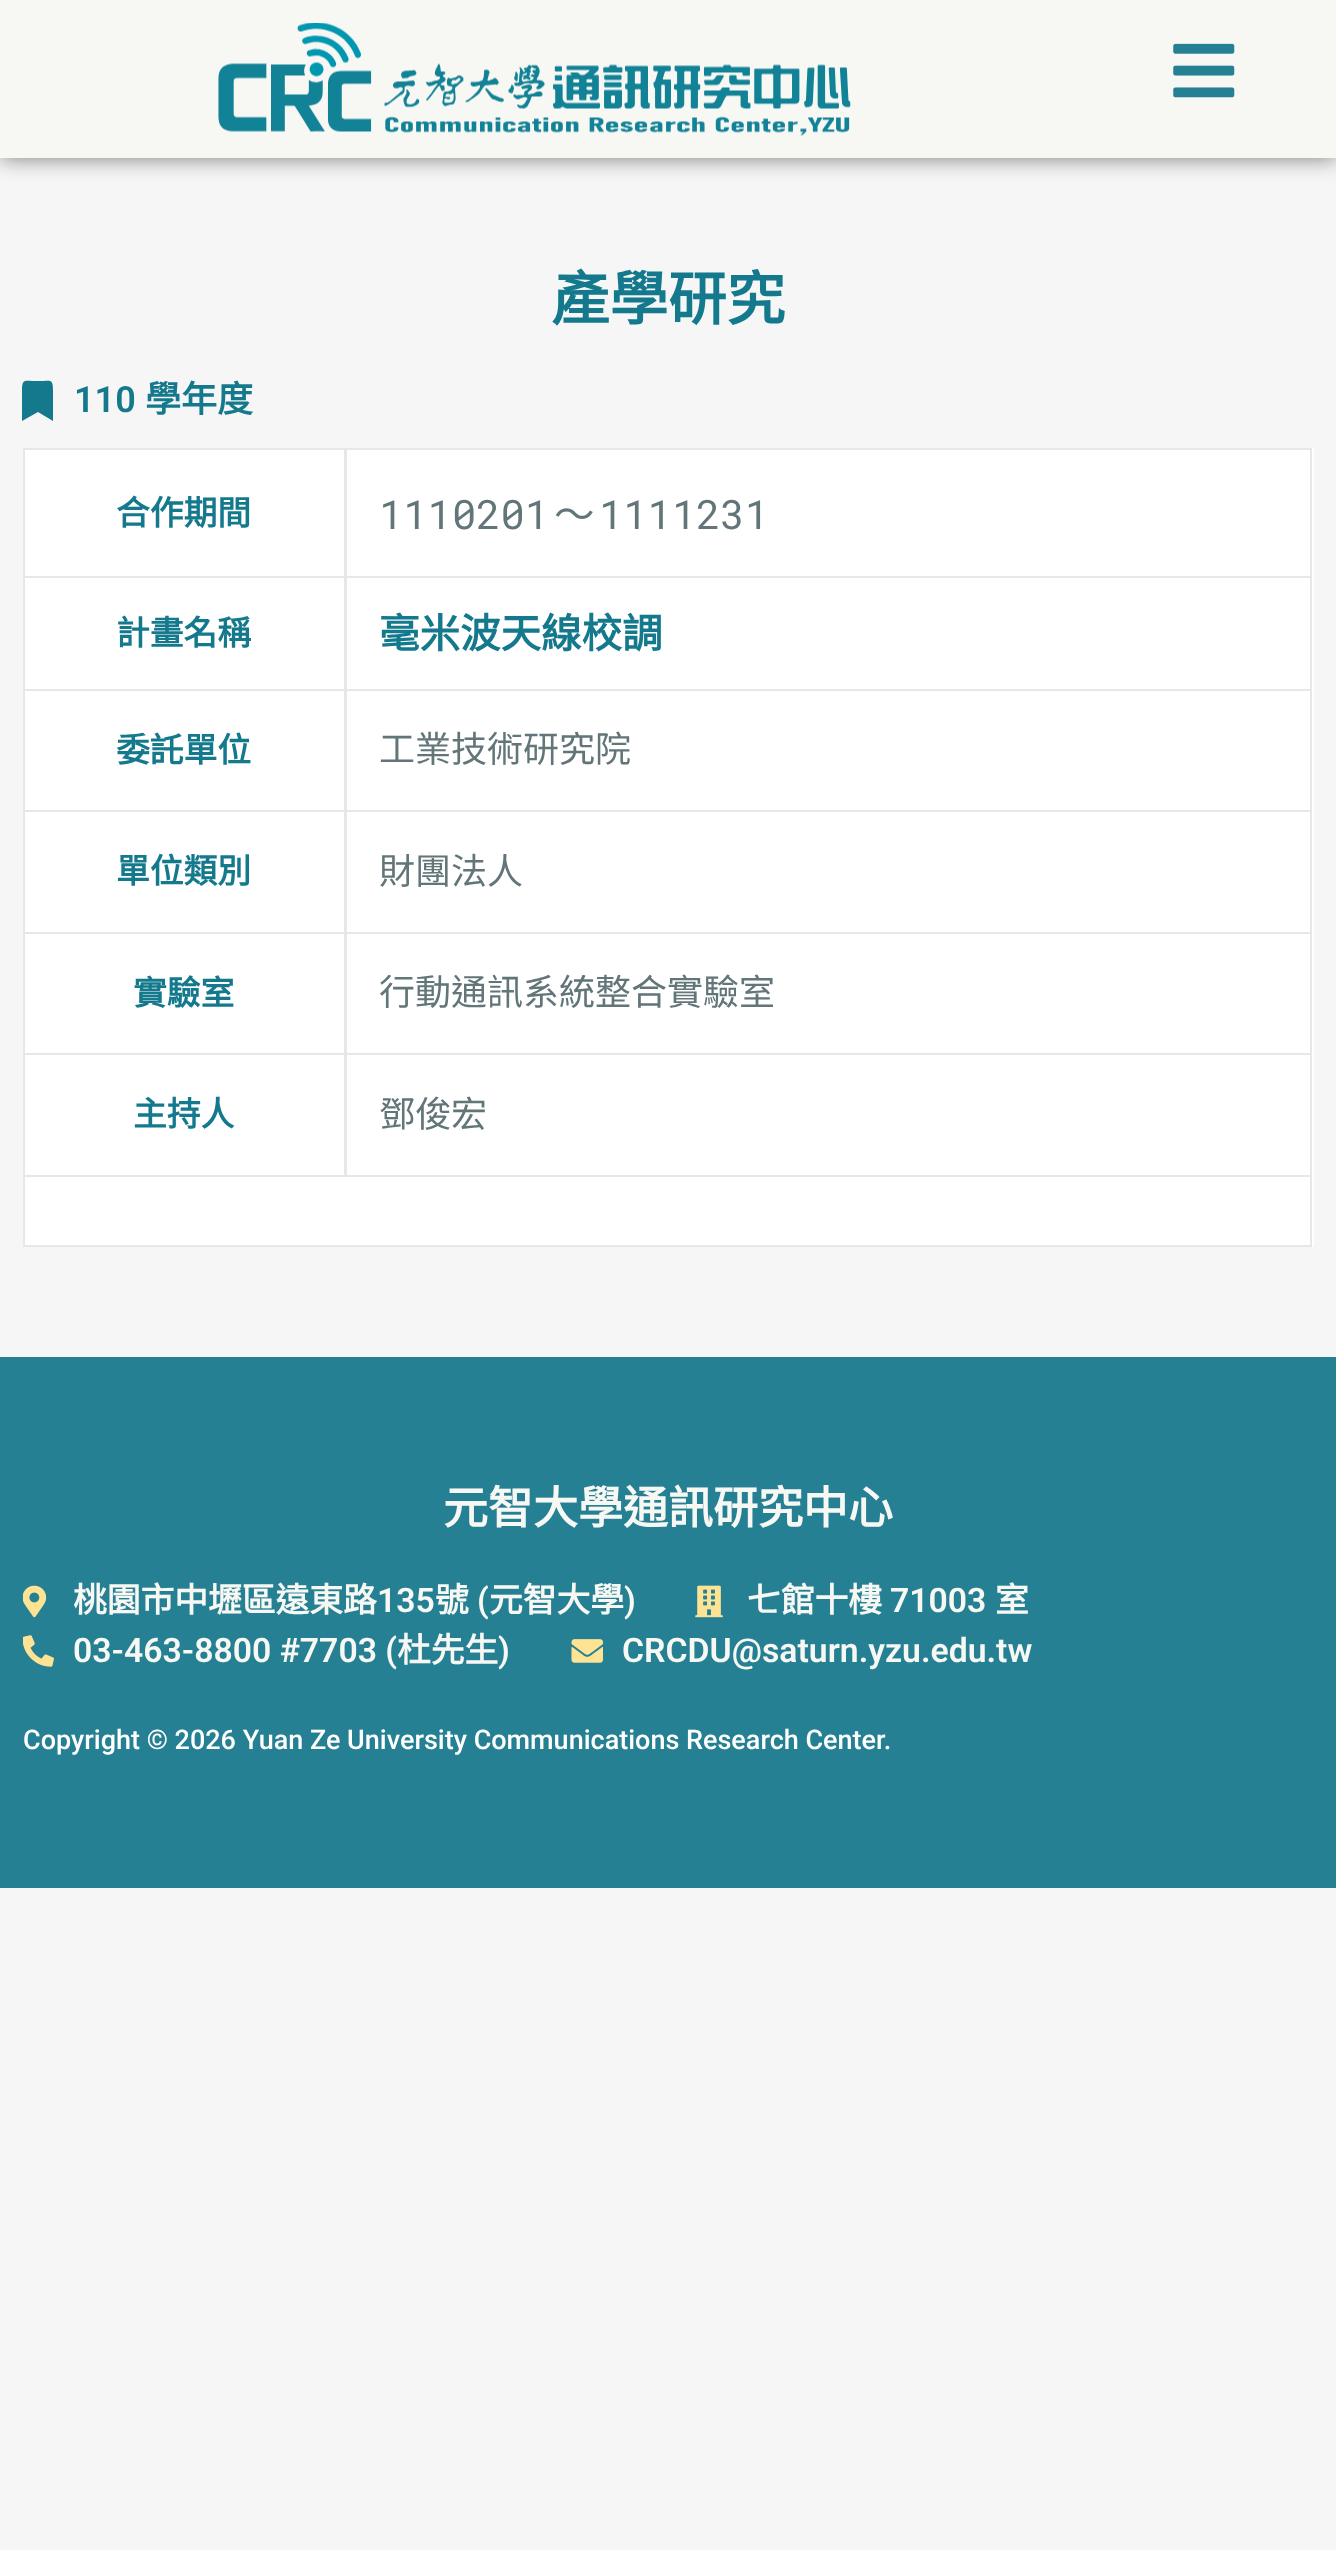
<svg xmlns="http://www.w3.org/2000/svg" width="1336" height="2550">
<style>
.a{font:bold 58.5px Noto Sans CJK TC;fill:#14798d}
.b{font:600 36px Roboto;fill:#14798d}
.c{font:bold 36px Noto Sans CJK TC;fill:#14798d}
.d{font:bold 33.75px Noto Sans CJK TC;fill:#14798d}
.e{font:40.5px Roboto Mono;fill:#627679}
.f{font:40.5px Noto Sans CJK TC;fill:#627679}
.g{font:bold 40.5px Noto Sans CJK TC;fill:#14798d}
.h{font:36px Noto Sans CJK TC;fill:#627679}
.i{font:bold 45px Noto Sans CJK TC;fill:#f7f7f4}
.j{font:bold 33.75px Noto Sans CJK TC;fill:#f7f7f4}
.k{font:600 33.75px Roboto;fill:#f7f7f4}
.l{font:500 27px Roboto;fill:#fff}
</style>
<rect width="100%" height="100%" fill="#f6f6f6"/>
<path fill="#00000080" filter="blur(11px)" d="M0 0h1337v158H0z"/>
<path fill="#f7f7f4" d="M0 0h1336v158H0z"/>
<image href="1.png" x="218" y="23" width="633" height="113"/>
<image href="2.png" x="1173" y="43" width="62" height="55"/>
<path fill="#14798d" d="M22 421v-30c0-13 2-10 16-10c13 0 15-3 15 10v30l-15-9z"/>
<path fill="#fff" d="M25 448h1289v128H25z"/>
<path fill="none" stroke="#e7e7e7" stroke-width="2" d="M24 449h322v131H24z"/>
<path fill="none" stroke="#e7e7e7" stroke-width="2" d="M345 449h966v131H345z"/>
<path fill="#fff" d="M25 576h1289v113H25z"/>
<path fill="none" stroke="#e7e7e7" stroke-width="2" d="M24 577h322v115H24z"/>
<path fill="none" stroke="#e7e7e7" stroke-width="2" d="M345 577h966v115H345z"/>
<path fill="#fff" d="M25 689h1289v121H25z"/>
<path fill="none" stroke="#e7e7e7" stroke-width="2" d="M24 690h322v124H24z"/>
<path fill="none" stroke="#e7e7e7" stroke-width="2" d="M345 690h966v124H345z"/>
<path fill="#fff" d="M25 810h1289v122H25z"/>
<path fill="none" stroke="#e7e7e7" stroke-width="2" d="M24 811h322v124H24z"/>
<path fill="none" stroke="#e7e7e7" stroke-width="2" d="M345 811h966v124H345z"/>
<path fill="#fff" d="M25 932h1289v121H25z"/>
<path fill="none" stroke="#e7e7e7" stroke-width="2" d="M24 933h322v124H24z"/>
<path fill="none" stroke="#e7e7e7" stroke-width="2" d="M345 933h966v124H345z"/>
<path fill="#fff" d="M25 1053h1289v122H25z"/>
<path fill="none" stroke="#e7e7e7" stroke-width="2" d="M24 1054h322v124H24z"/>
<path fill="none" stroke="#e7e7e7" stroke-width="2" d="M345 1054h966v124H345z"/>
<path fill="#fff" d="M25 1175h1289v72H25z"/>
<path fill="none" stroke="#e7e7e7" stroke-width="2" d="M24 1176h1287v70H24z"/>
<path fill="#248092" d="M0 1357h1336v531H0z"/>
<image href="3.png" x="23" y="1585" width="24" height="33"/>
<image href="4.png" x="695" y="1585" width="28" height="33"/>
<image href="5.png" x="23" y="1635" width="31" height="32"/>
<image href="6.png" x="571" y="1639" width="32" height="24"/>
<text class="a" x="551" y="320">產學研究</text>
<text class="b" x="74" y="412">110</text>
<text class="c" x="145" y="412">學年度</text>
<text class="d" x="116" y="525">合作期間</text>
<text class="e" x="379" y="529">1110201</text>
<text class="f" x="554" y="529">～</text>
<text class="e" x="599" y="529">1111231</text>
<text class="d" x="116" y="645">計畫名稱</text>
<text class="g" x="379" y="648">毫米波天線校調</text>
<text class="d" x="116" y="762">委託單位</text>
<text class="h" x="379" y="762">工業技術研究院</text>
<text class="d" x="116" y="883">單位類別</text>
<text class="h" x="379" y="884">財團法人</text>
<text class="d" x="133" y="1005">實驗室</text>
<text class="h" x="379" y="1005">行動通訊系統整合實驗室</text>
<text class="d" x="133" y="1126">主持人</text>
<text class="h" x="379" y="1127">鄧俊宏</text>
<text class="i" x="443" y="1524">元智大學通訊研究中心</text>
<text class="j" x="73" y="1612">桃園市中壢區遠東路</text>
<text class="k" x="377" y="1612">135</text>
<text class="j" x="435" y="1612">號</text>
<text class="k" x="477" y="1612">(</text>
<text class="j" x="489" y="1612">元智大學</text>
<text class="k" x="624" y="1612">)</text>
<text class="j" x="747" y="1612">七館十樓</text>
<text class="k" x="890" y="1612">71003</text>
<text class="j" x="995" y="1612">室</text>
<text class="k" x="73" y="1662">03-463-8800 #7703 (</text>
<text class="j" x="397" y="1662">杜先生</text>
<text class="k" x="498" y="1662">)</text>
<text class="k" x="622" y="1662">CRCDU@saturn.yzu.edu.tw</text>
<text class="l" x="23" y="1749">Copyright © 2026 Yuan Ze University Communications Research Center.</text>
</svg>
